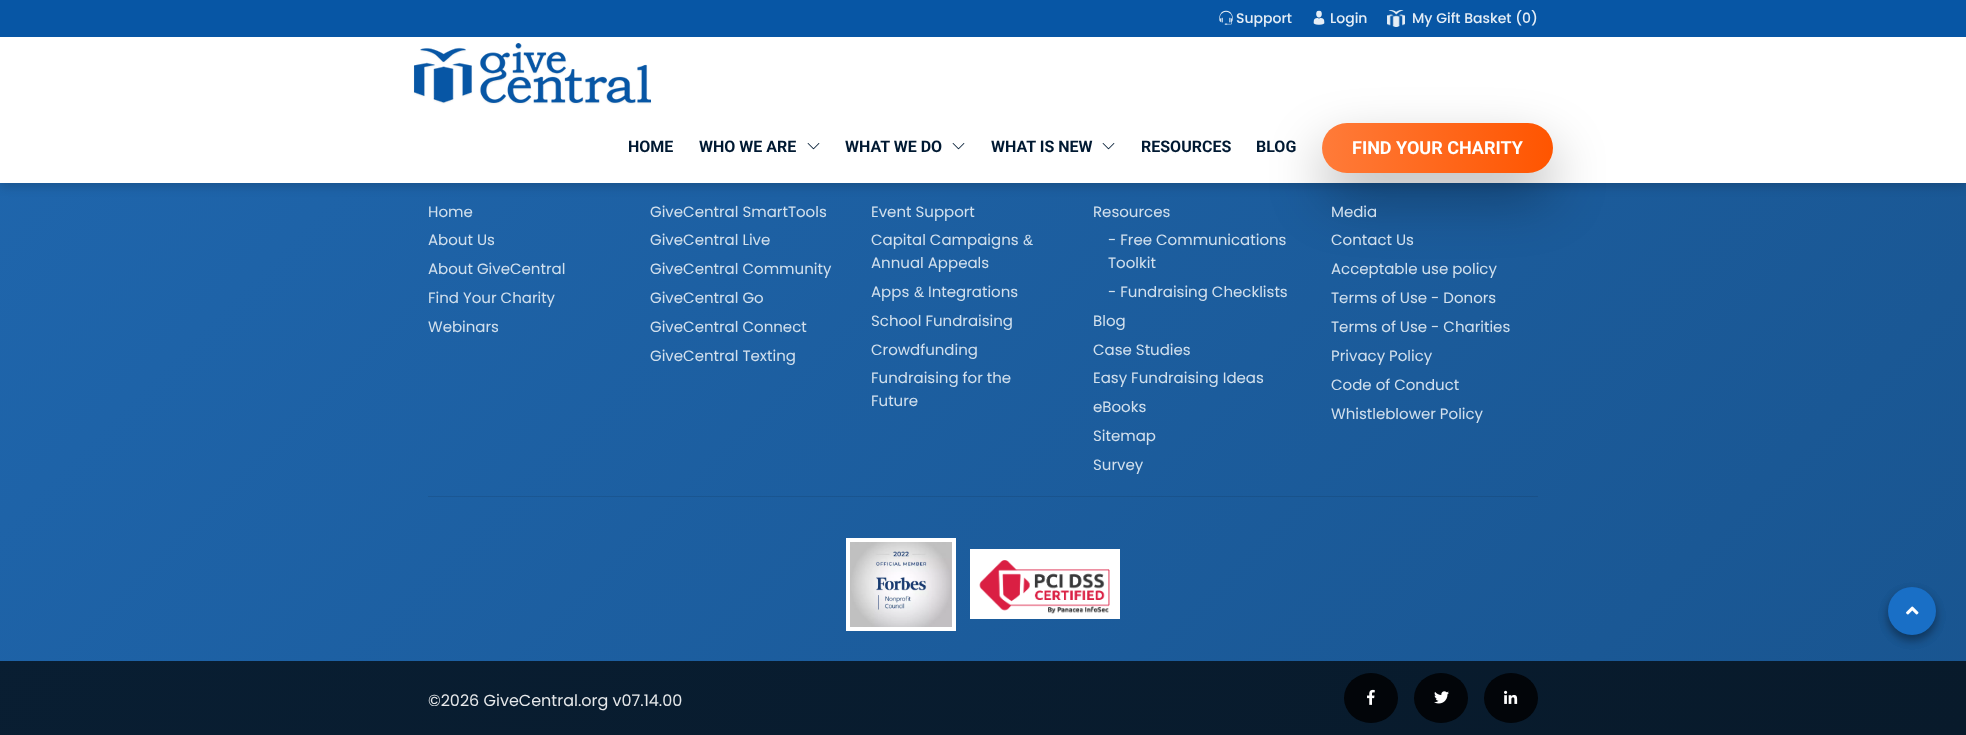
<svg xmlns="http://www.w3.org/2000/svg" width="1966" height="735">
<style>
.a{font:500 14px Poppins;fill:#e6eef6}
.b{font:bold 16px Roboto;fill:#001932}
.c{font:bold 18px Roboto;fill:#fff}
.d{font:15px Poppins;fill:#d2e0ed}
.e{font:15px Liberation Sans;fill:#d2e0ed}
.f{font:16px Poppins;fill:#e6e8ea}
</style>
<defs>
<linearGradient id="g1" gradientUnits="userSpaceOnUse" x1="1642" y1="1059" x2="324" y2="-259"><stop offset="0" stop-color="#195590"/><stop offset="1" stop-color="#1f66ad"/></linearGradient>
<linearGradient id="g2" gradientUnits="userSpaceOnUse" x1="1322" y1="148" x2="1553" y2="148"><stop offset="0" stop-color="#ff7b39"/><stop offset="1" stop-color="#f50"/></linearGradient>
<linearGradient id="g3" gradientUnits="userSpaceOnUse" x1="1642" y1="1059" x2="324" y2="-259"><stop offset="0" stop-color="#081a2b"/><stop offset="1" stop-color="#091f34"/></linearGradient>
<linearGradient id="g4" gradientUnits="userSpaceOnUse" x1="1642" y1="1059" x2="324" y2="-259"><stop offset="0" stop-color="#174d82"/><stop offset="1" stop-color="#1c5c9c"/></linearGradient>
</defs>
<rect width="100%" height="100%" fill="#fff"/>
<path fill="url(#g1)" d="M0 183h1966v478H0z"/>
<path fill="#00000026" filter="blur(5px)" d="M0 41h1966v146H0z"/>
<path fill="#0756a5" d="M0 0h1966v37H0z"/>
<image href="1.png" x="1219" y="10" width="14" height="15"/>
<image href="2.png" x="1313" y="10" width="12" height="15"/>
<image href="3.png" x="1387" y="10" width="18" height="17"/>
<path fill="#fff" d="M0 37h1966v146H0z"/>
<image href="4.png" x="413" y="43" width="239" height="62"/>
<image href="5.png" x="807" y="143" width="13" height="7"/>
<image href="5.png" x="952" y="143" width="13" height="7"/>
<image href="5.png" x="1102" y="143" width="13" height="7"/>
<rect fill="#0000004d" filter="blur(27.5px)" x="1322" y="148" width="231" height="50" rx="25"/>
<rect fill="url(#g2)" x="1322" y="123" width="231" height="50" rx="25"/>
<path fill="url(#g3)" d="M0 661h1966v74H0z"/>
<path fill="url(#g4)" d="M428 496h1110v1H428z"/>
<path fill="#fff" d="M846 538h110v93H846z"/>
<image href="6.png" x="850" y="542" width="102" height="85"/>
<path fill="#fff" d="M970 549h150v70H970z"/>
<image href="7.png" x="979" y="560" width="131" height="54"/>
<ellipse fill="#020509" cx="1371" cy="698" rx="27" ry="25"/>
<image href="8.png" x="1367" y="689" width="8" height="16"/>
<ellipse fill="#020509" cx="1441" cy="698" rx="27" ry="25"/>
<image href="9.png" x="1434" y="691" width="15" height="13"/>
<ellipse fill="#020509" cx="1511" cy="698" rx="27" ry="25"/>
<image href="10.png" x="1504" y="690" width="14" height="14"/>
<rect fill="#00000038" filter="blur(5px)" x="1888" y="592" width="48" height="48" rx="24"/>
<rect fill="#00000036" filter="blur(5px)" x="1888" y="592" width="48" height="48" rx="24"/>
<circle fill="#196fc6" cx="1912" cy="611" r="24"/>
<image href="11.png" x="1906" y="606" width="13" height="9"/>
<text class="a" x="1236" y="23">Support</text>
<text class="a" x="1330" y="23">Login</text>
<text class="a" x="1412" y="23">My Gift Basket (0)</text>
<text class="b" x="628" y="152">HOME</text>
<text class="b" x="699" y="152">WHO WE ARE</text>
<text class="b" x="845" y="152">WHAT WE DO</text>
<text class="b" x="991" y="152">WHAT IS NEW</text>
<text class="b" x="1141" y="152">RESOURCES</text>
<text class="b" x="1256" y="152">BLOG</text>
<text class="c" x="1352" y="154">FIND YOUR CHARITY</text>
<text class="d" x="428" y="217">Home</text>
<text class="d" x="428" y="245">About Us</text>
<text class="d" x="428" y="274">About GiveCentral</text>
<text class="d" x="428" y="303">Find Your Charity</text>
<text class="d" x="428" y="332">Webinars</text>
<text class="d" x="650" y="217">GiveCentral SmartTools</text>
<text class="d" x="650" y="245">GiveCentral Live</text>
<text class="d" x="650" y="274">GiveCentral Community</text>
<text class="d" x="650" y="303">GiveCentral Go</text>
<text class="d" x="650" y="332">GiveCentral Connect</text>
<text class="d" x="650" y="361">GiveCentral Texting</text>
<text class="d" x="871" y="217">Event Support</text>
<text class="d" x="871" y="245">Capital Campaigns</text>
<text class="e" x="1023" y="245">&amp;</text>
<text class="d" x="871" y="268">Annual Appeals</text>
<text class="d" x="871" y="297">Apps</text>
<text class="e" x="914" y="297">&amp;</text>
<text class="d" x="928" y="297">Integrations</text>
<text class="d" x="871" y="326">School Fundraising</text>
<text class="d" x="871" y="355">Crowdfunding</text>
<text class="d" x="871" y="383">Fundraising for the</text>
<text class="d" x="871" y="406">Future</text>
<text class="d" x="1093" y="217">Resources</text>
<text class="d" x="1108" y="245">- Free Communications</text>
<text class="d" x="1108" y="268">Toolkit</text>
<text class="d" x="1108" y="297">- Fundraising Checklists</text>
<text class="d" x="1093" y="326">Blog</text>
<text class="d" x="1093" y="355">Case Studies</text>
<text class="d" x="1093" y="383">Easy Fundraising Ideas</text>
<text class="d" x="1093" y="412">eBooks</text>
<text class="d" x="1093" y="441">Sitemap</text>
<text class="d" x="1093" y="470">Survey</text>
<text class="d" x="1331" y="217">Media</text>
<text class="d" x="1331" y="245">Contact Us</text>
<text class="d" x="1331" y="274">Acceptable use policy</text>
<text class="d" x="1331" y="303">Terms of Use - Donors</text>
<text class="d" x="1331" y="332">Terms of Use - Charities</text>
<text class="d" x="1331" y="361">Privacy Policy</text>
<text class="d" x="1331" y="390">Code of Conduct</text>
<text class="d" x="1331" y="419">Whistleblower Policy</text>
<text class="f" x="428" y="706">©2026 GiveCentral.org v07.14.00</text>
</svg>
